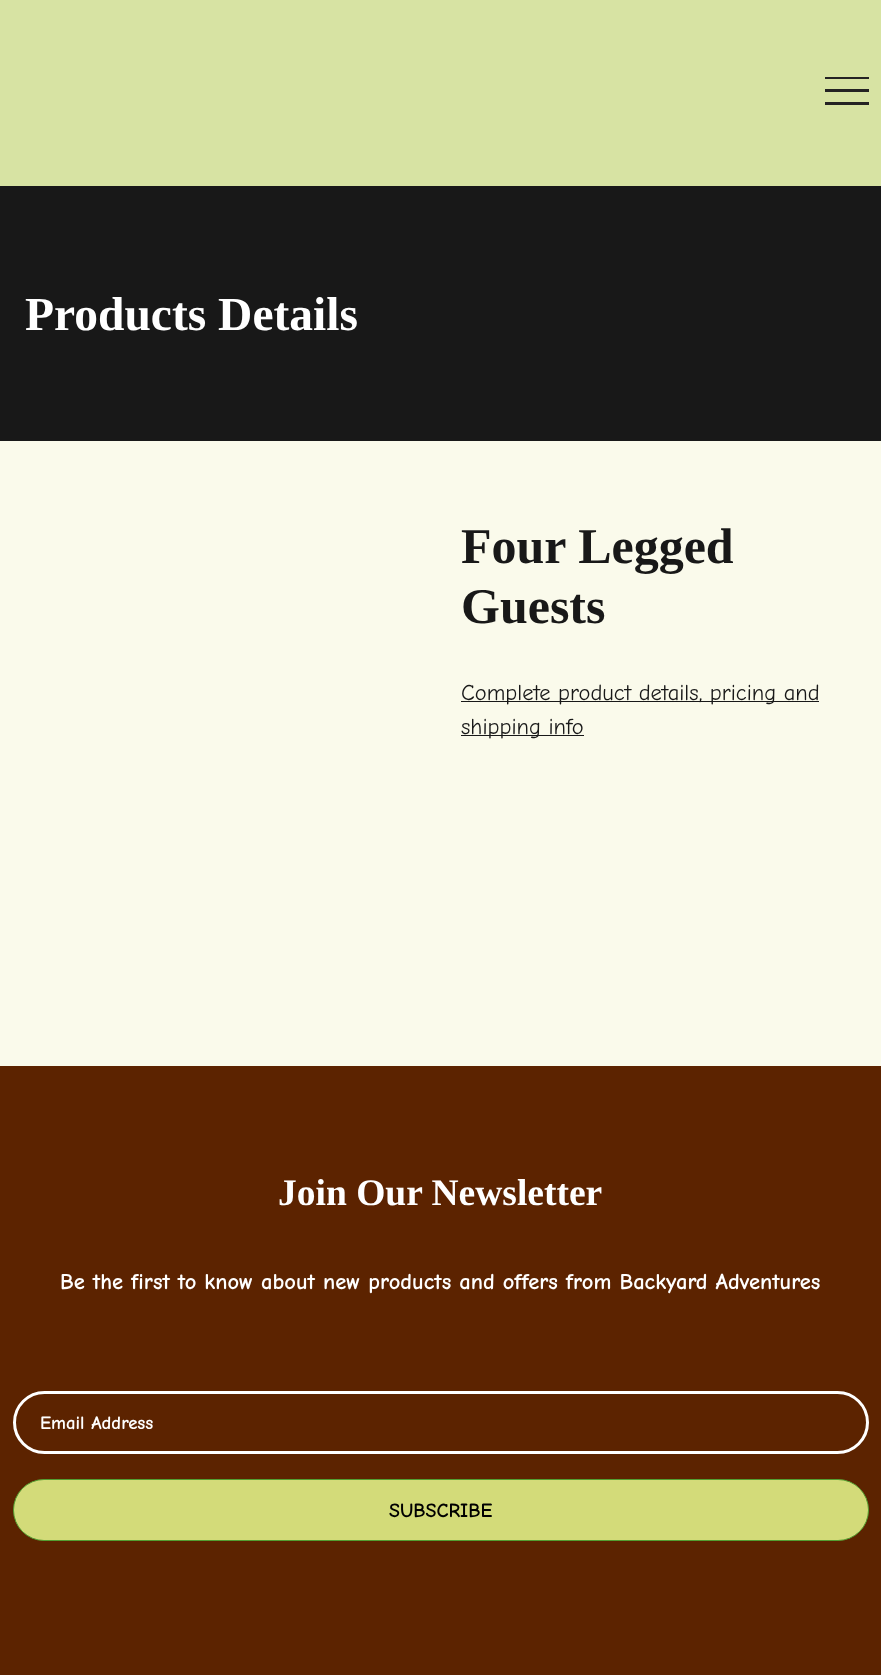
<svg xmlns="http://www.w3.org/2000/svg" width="881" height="1675">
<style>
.a{font:bold 47.5px Tinos;fill:#fff}
.b{font:bold 50px Tinos;fill:#181818}
.c{font:22.5px Comic Neue;fill:#181818}
.d{font:bold 37.5px Tinos;fill:#fff}
.e{font:bold 22.5px Comic Neue;fill:#fff}
.f{font:bold 18.75px Comic Neue;fill:#fff}
.g{font:bold 20px Comic Neue;fill:#000}
</style>
<rect width="100%" height="100%" fill="#fafaeb"/>
<path fill="#d7e3a3" d="M0 0h881v186H0z"/>
<path fill="#242323" d="M825 77h44v2H825z"/>
<path fill="#242323" d="M825 89h44v3H825z"/>
<path fill="#242323" d="M825 102h44v3H825z"/>
<path fill="#181818" d="M0 186h881v255H0z"/>
<path fill="#181818" d="M461 701h358v1H461z"/>
<path fill="#181818" d="M461 735h123v1H461z"/>
<path fill="#5c2300" d="M0 1066h881v609H0z"/>
<rect fill="none" stroke="#fff" stroke-width="3" x="14.5" y="1392.5" width="853" height="60" rx="30"/>
<rect fill="#d3db79" stroke="#539e31" x="13.5" y="1479.5" width="855" height="61" rx="30.5"/>
<text class="a" x="25" y="330">Products Details</text>
<text class="b" x="461" y="563">Four Legged</text>
<text class="b" x="461" y="623">Guests</text>
<text class="c" x="461" y="700">Complete product details, pricing and</text>
<text class="c" x="461" y="734">shipping info</text>
<text class="d" x="278" y="1205">Join Our Newsletter</text>
<text class="e" x="60" y="1289">Be the first to know about new products and offers from Backyard Adventures</text>
<text class="f" x="40" y="1429">Email Address</text>
<text class="g" x="389" y="1517">SUBSCRIBE</text>
</svg>
